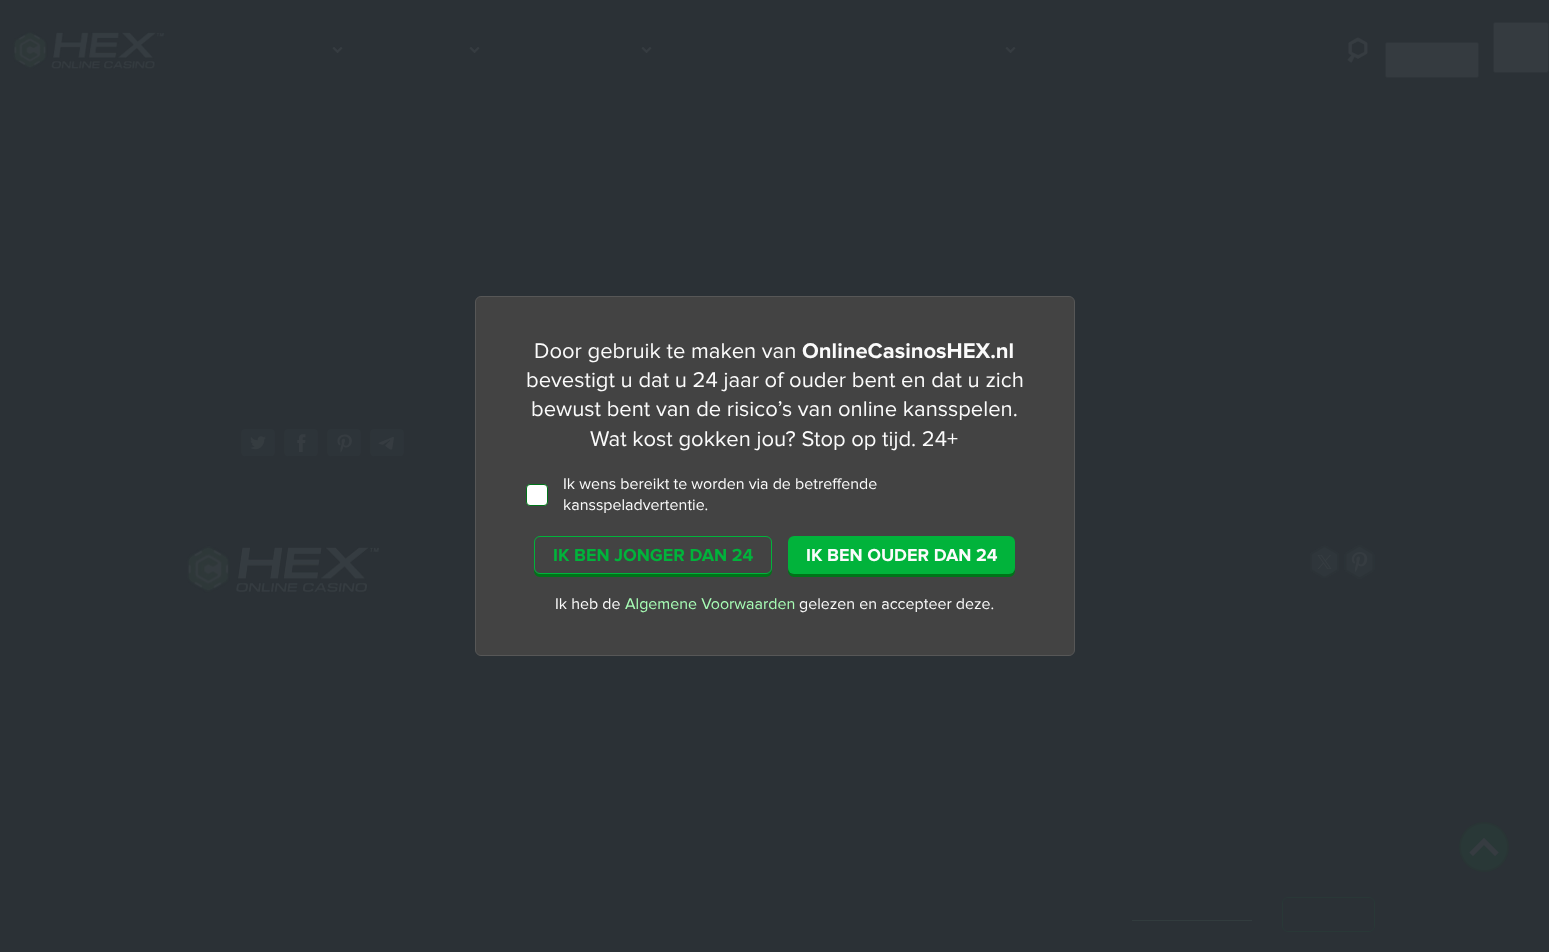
<svg xmlns="http://www.w3.org/2000/svg" width="1549" height="952">
<style>
.a{font:22px Proxima Nova;fill:#fbfbfb}
.b{font:bold 22px Proxima Nova;fill:#fbfbfb}
.c{font:16px Proxima Nova;fill:#fbfbfb}
.d{font:bold 18px Proxima Nova;fill:#01b33b}
.e{font:bold 18px Proxima Nova;fill:#fbfbfb}
.f{font:16px Proxima Nova;fill:#a8feb6}
</style>
<rect width="100%" height="100%" fill="#2b3136"/>
<image href="1.png" x="12" y="31" width="153" height="38"/>
<image href="2.png" x="332" y="46" width="11" height="8"/>
<image href="2.png" x="469" y="46" width="11" height="8"/>
<image href="2.png" x="641" y="46" width="11" height="8"/>
<image href="2.png" x="1005" y="46" width="11" height="8"/>
<image href="3.png" x="1347" y="37" width="21" height="26"/>
<rect fill="#353b40" stroke="#2f353a" x="1385.5" y="42.5" width="93" height="35" rx="1.5"/>
<rect fill="#353b40" stroke="#2f353a" x="1493.5" y="22.5" width="55" height="50" rx="1.5"/>
<image href="4.png" x="241" y="429" width="34" height="28"/>
<image href="5.png" x="284" y="429" width="34" height="28"/>
<image href="6.png" x="327" y="429" width="34" height="28"/>
<image href="7.png" x="370" y="429" width="34" height="28"/>
<rect fill="#434343" stroke="#575757" x="475.5" y="296.5" width="599" height="359" rx="5.5"/>
<rect fill="#fff" stroke="#007419" x="526.5" y="484.5" width="21" height="21" rx="3.5"/>
<path fill="#007419" d="M534 568v3c0 3 3 6 6 6h226c3 0 6-3 6-6v-3c0 3-3 6-6 6h-226c-3 0-6-3-6-6z"/>
<rect fill="none" stroke="#01b33b" x="534.5" y="536.5" width="237" height="37" rx="5.5"/>
<path fill="#007419" d="M788 568v3c0 3 3 6 6 6h215c3 0 6-3 6-6v-3c0 3-3 6-6 6h-215c-3 0-6-3-6-6z"/>
<rect fill="#01b33b" x="788" y="536" width="227" height="38" rx="6"/>
<image href="8.png" x="186" y="545" width="194" height="48"/>
<image href="9.png" x="1310" y="545" width="29" height="34"/>
<image href="10.png" x="1344" y="545" width="31" height="34"/>
<image href="11.png" x="1459" y="822" width="50" height="50"/>
<path fill="#323c3e" d="M1132 920h120v1H1132z"/>
<rect fill="none" stroke="#293837" x="1282.5" y="897.5" width="92" height="34" rx="5.5"/>
<text class="a" x="534" y="358">Door gebruik te maken van</text>
<text class="b" x="802" y="358">OnlineCasinosHEX.nl</text>
<text class="a" x="526" y="387">bevestigt u dat u 24 jaar of ouder bent en dat u zich</text>
<text class="a" x="531" y="416">bewust bent van de risico’s van online kansspelen.</text>
<text class="a" x="590" y="446">Wat kost gokken jou? Stop op tijd. 24+</text>
<text class="c" x="563" y="489">Ik wens bereikt te worden via de betreffende</text>
<text class="c" x="563" y="510">kansspeladvertentie.</text>
<text class="d" x="553" y="561">IK BEN JONGER DAN 24</text>
<text class="e" x="806" y="561">IK BEN OUDER DAN 24</text>
<text class="c" x="555" y="609">Ik heb de</text>
<text class="f" x="625" y="609">Algemene Voorwaarden</text>
<text class="c" x="799" y="609">gelezen en accepteer deze.</text>
</svg>
